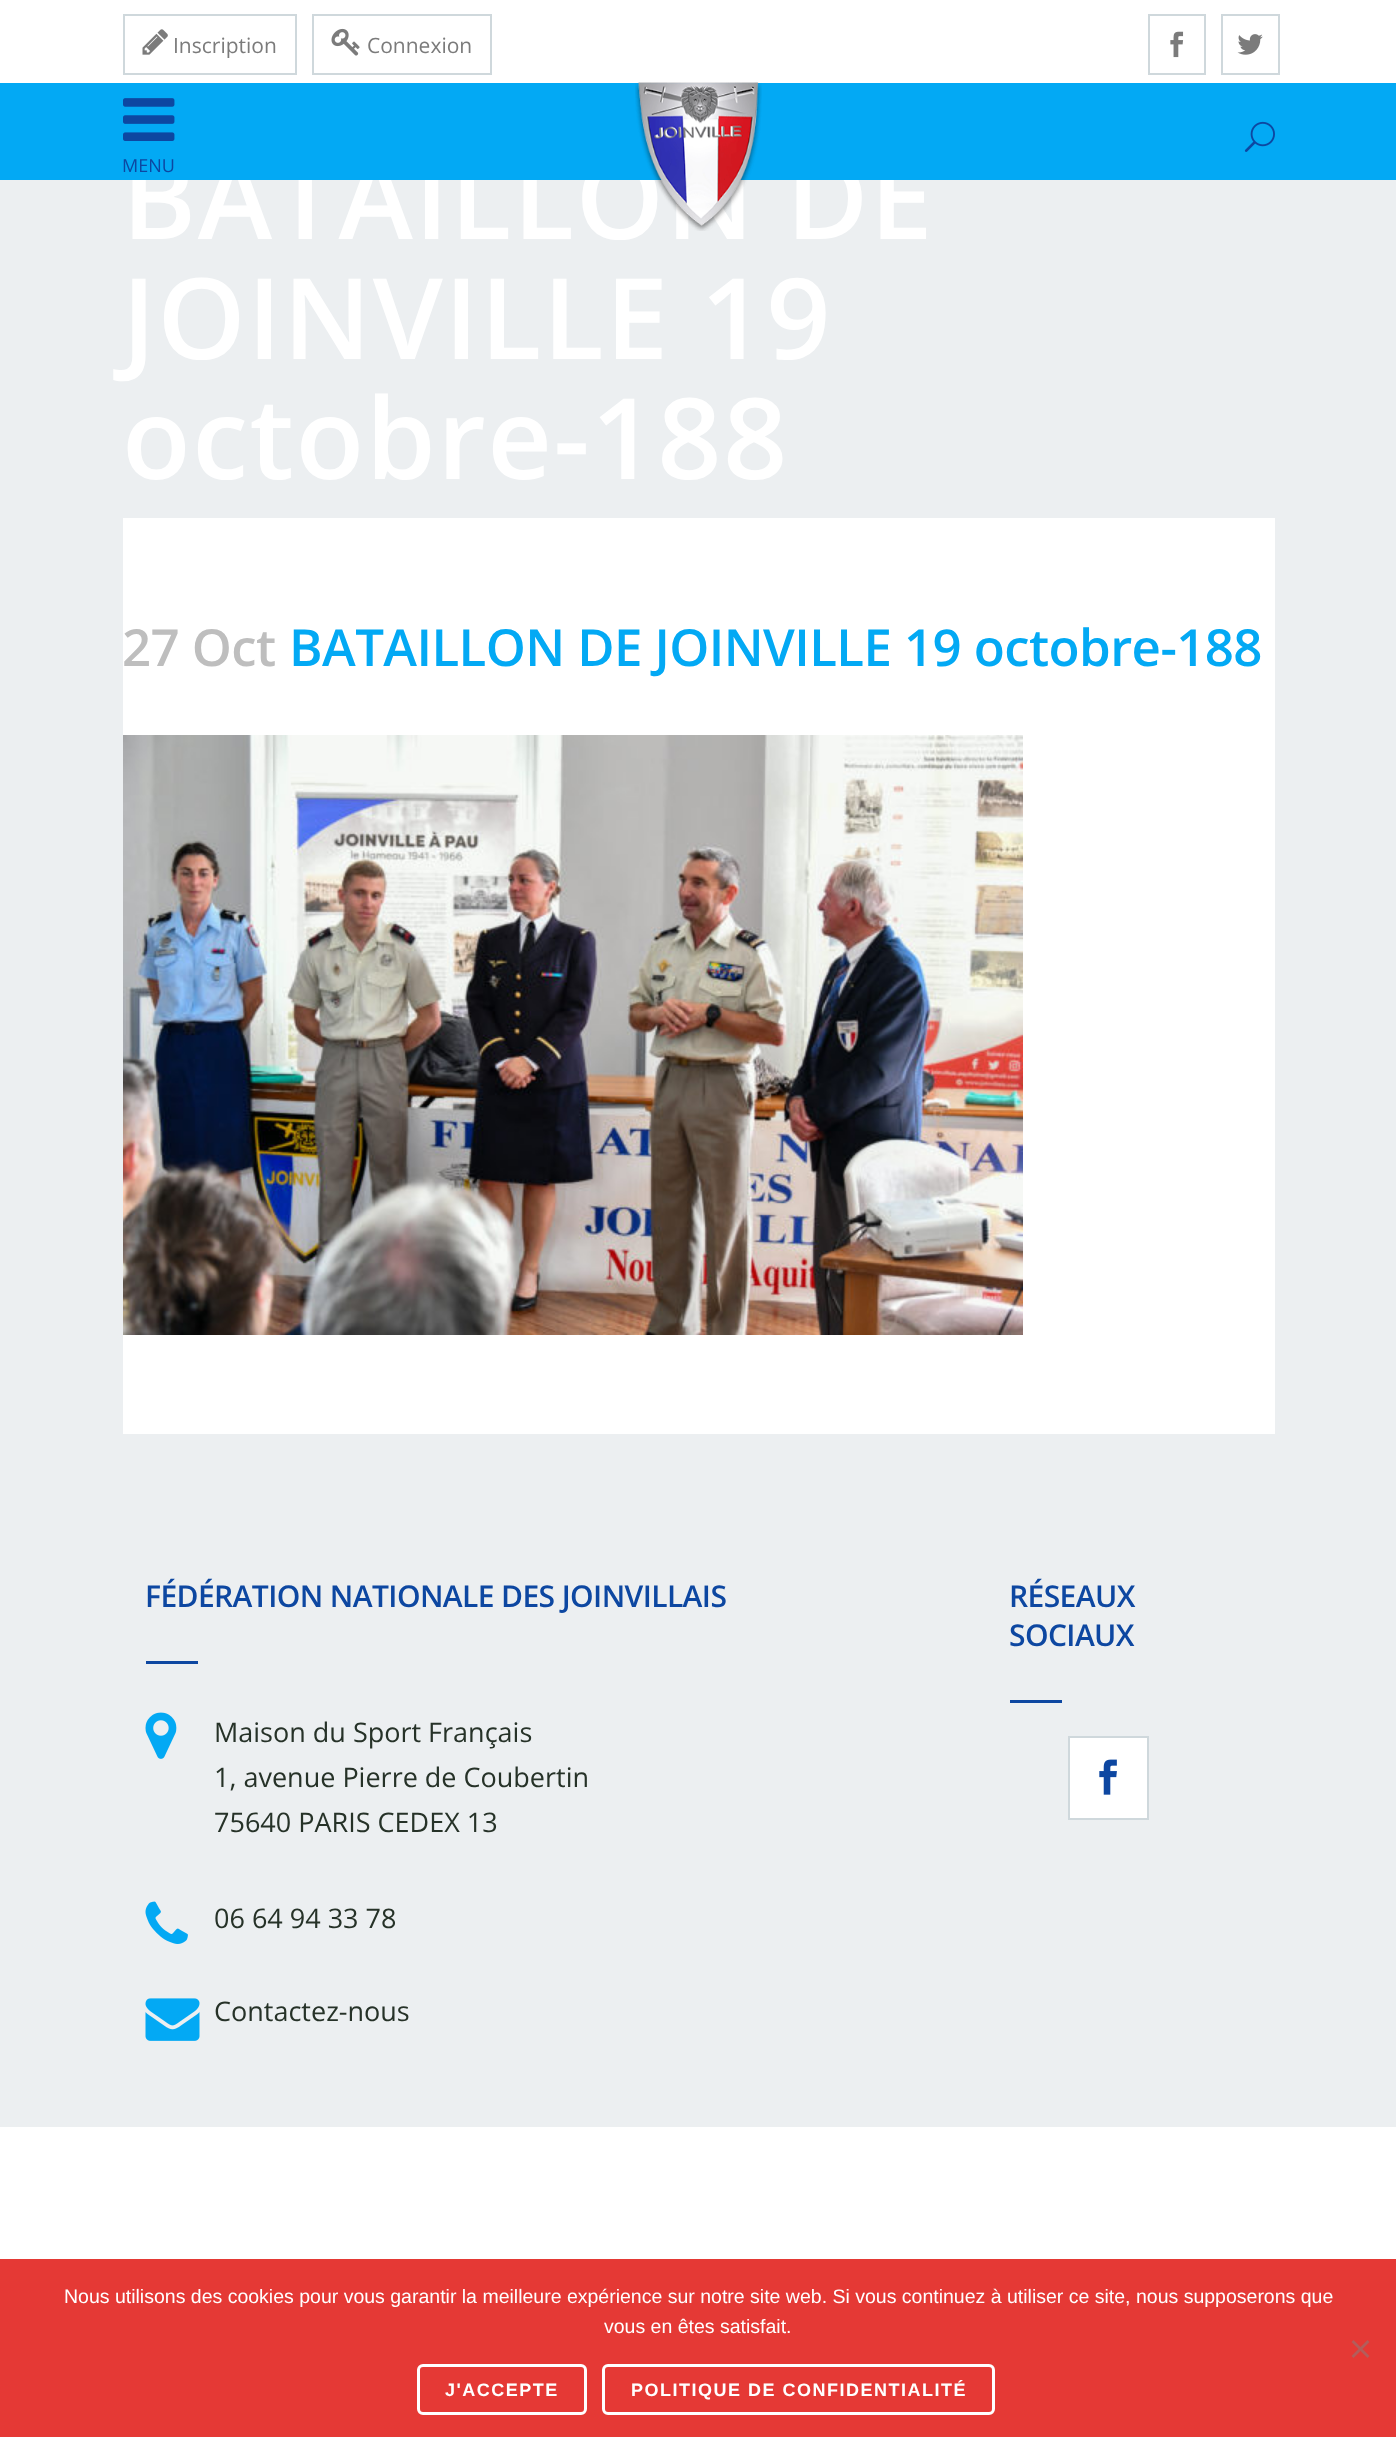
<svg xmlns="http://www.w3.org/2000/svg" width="1396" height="2437">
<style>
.a{font:21px Open Sans;fill:#7b7b7b}
.b{font:600 112.5px Open Sans;letter-spacing:1.5px;fill:#fff}
.c{font:18px Open Sans;fill:#0d47a1}
.d{font:600 51px Open Sans;letter-spacing:-0.6px;fill:#bebebe}
.e{font:600 51px Open Sans;letter-spacing:-0.6px;fill:#03a9f4}
.f{font:600 30px Open Sans;letter-spacing:-0.6px;fill:#0d47a1}
.g{font:27px Open Sans;fill:#263228}
.h{font:19.5px Liberation Sans;fill:#fff}
.i{font:bold 18px Liberation Sans;letter-spacing:1.5px;fill:#fff}
</style>
<rect width="100%" height="100%" fill="#eceff1"/>
<path fill="#fff" d="M0 0h1396v83H0z"/>
<path fill="none" stroke="#cfd8dc" stroke-width="2" d="M124 15h172v59H124z"/>
<image href="1.png" x="142" y="29" width="26" height="26"/>
<path fill="none" stroke="#cfd8dc" stroke-width="2" d="M313 15h178v59H313z"/>
<image href="2.png" x="331" y="28" width="29" height="28"/>
<path fill="none" stroke="#cfd8dc" stroke-width="2" d="M1149 15h56v59H1149z"/>
<image href="3.png" x="1170" y="31" width="14" height="27"/>
<path fill="none" stroke="#cfd8dc" stroke-width="2" d="M1222 15h57v59H1222z"/>
<image href="4.png" x="1237" y="34" width="26" height="21"/>
<path fill="#fff" d="M123 518h1152v916H123z"/>
<image href="8.png" x="123" y="735" width="900" height="600"/>
<path fill="#fff" d="M0 2127h1396v132H0z"/>
<path fill="#0d47a1" d="M146 1661h52v3H146z"/>
<image href="9.png" x="145" y="1712" width="32" height="47"/>
<image href="10.png" x="145" y="1901" width="43" height="43"/>
<image href="11.png" x="145" y="1998" width="55" height="43"/>
<path fill="#0d47a1" d="M1010 1700h52v3H1010z"/>
<path fill="#fff" stroke="#cfd8dc" stroke-width="2" d="M1069 1737h79v82H1069z"/>
<image href="12.png" x="1099" y="1759" width="18" height="36"/>
<path fill="#e53935" d="M0 2259h1396v178H0z"/>
<path fill="#b35d5b" d="M1367.5 2340l2 2l-16 16l-2-2z"/>
<path fill="#b35d5b" d="M1351.5 2342l2-2l16 16l-2 2z"/>
<rect fill="none" stroke="#fff" stroke-width="3" x="418.5" y="2365.5" width="167" height="48" rx="4.5"/>
<rect fill="none" stroke="#fff" stroke-width="3" x="603.5" y="2365.5" width="390" height="48" rx="4.5"/>
<text class="a" x="173" y="53">Inscription</text>
<text class="a" x="367" y="53">Connexion</text>
<text class="b" x="122" y="239">BATAILLON DE</text>
<path fill="#03a9f4" d="M0 83h1396v97H0z"/>
<image href="5.png" x="1244" y="121" width="31" height="31"/>
<text class="c" x="122" y="172">MENU</text>
<image href="6.png" x="123" y="98" width="52" height="43"/>
<image href="7.png" x="635" y="82" width="127" height="149"/>
<text class="b" x="122" y="359">JOINVILLE 19</text>
<text class="b" x="122" y="479">octobre-188</text>
<text class="d" x="122" y="666">27 Oct</text>
<text class="e" x="289" y="666">BATAILLON DE JOINVILLE 19 octobre-188</text>
<text class="f" x="145" y="1607">FÉDÉRATION NATIONALE DES JOINVILLAIS</text>
<text class="g" x="214" y="1742">Maison du Sport Français</text>
<text class="g" x="214" y="1787">1, avenue Pierre de Coubertin</text>
<text class="g" x="214" y="1832">75640 PARIS CEDEX 13</text>
<text class="g" x="214" y="1928">06 64 94 33 78</text>
<text class="g" x="214" y="2021">Contactez-nous</text>
<text class="f" x="1009" y="1607">RÉSEAUX</text>
<text class="f" x="1009" y="1646">SOCIAUX</text>
<text class="h" x="64" y="2303">Nous utilisons des cookies pour vous garantir la meilleure expérience sur notre site web. Si vous continuez à utiliser ce site, nous supposerons que</text>
<text class="h" x="604" y="2333">vous en êtes satisfait.</text>
<text class="i" x="445" y="2396">J'ACCEPTE</text>
<text class="i" x="631" y="2396">POLITIQUE DE CONFIDENTIALITÉ</text>
</svg>
